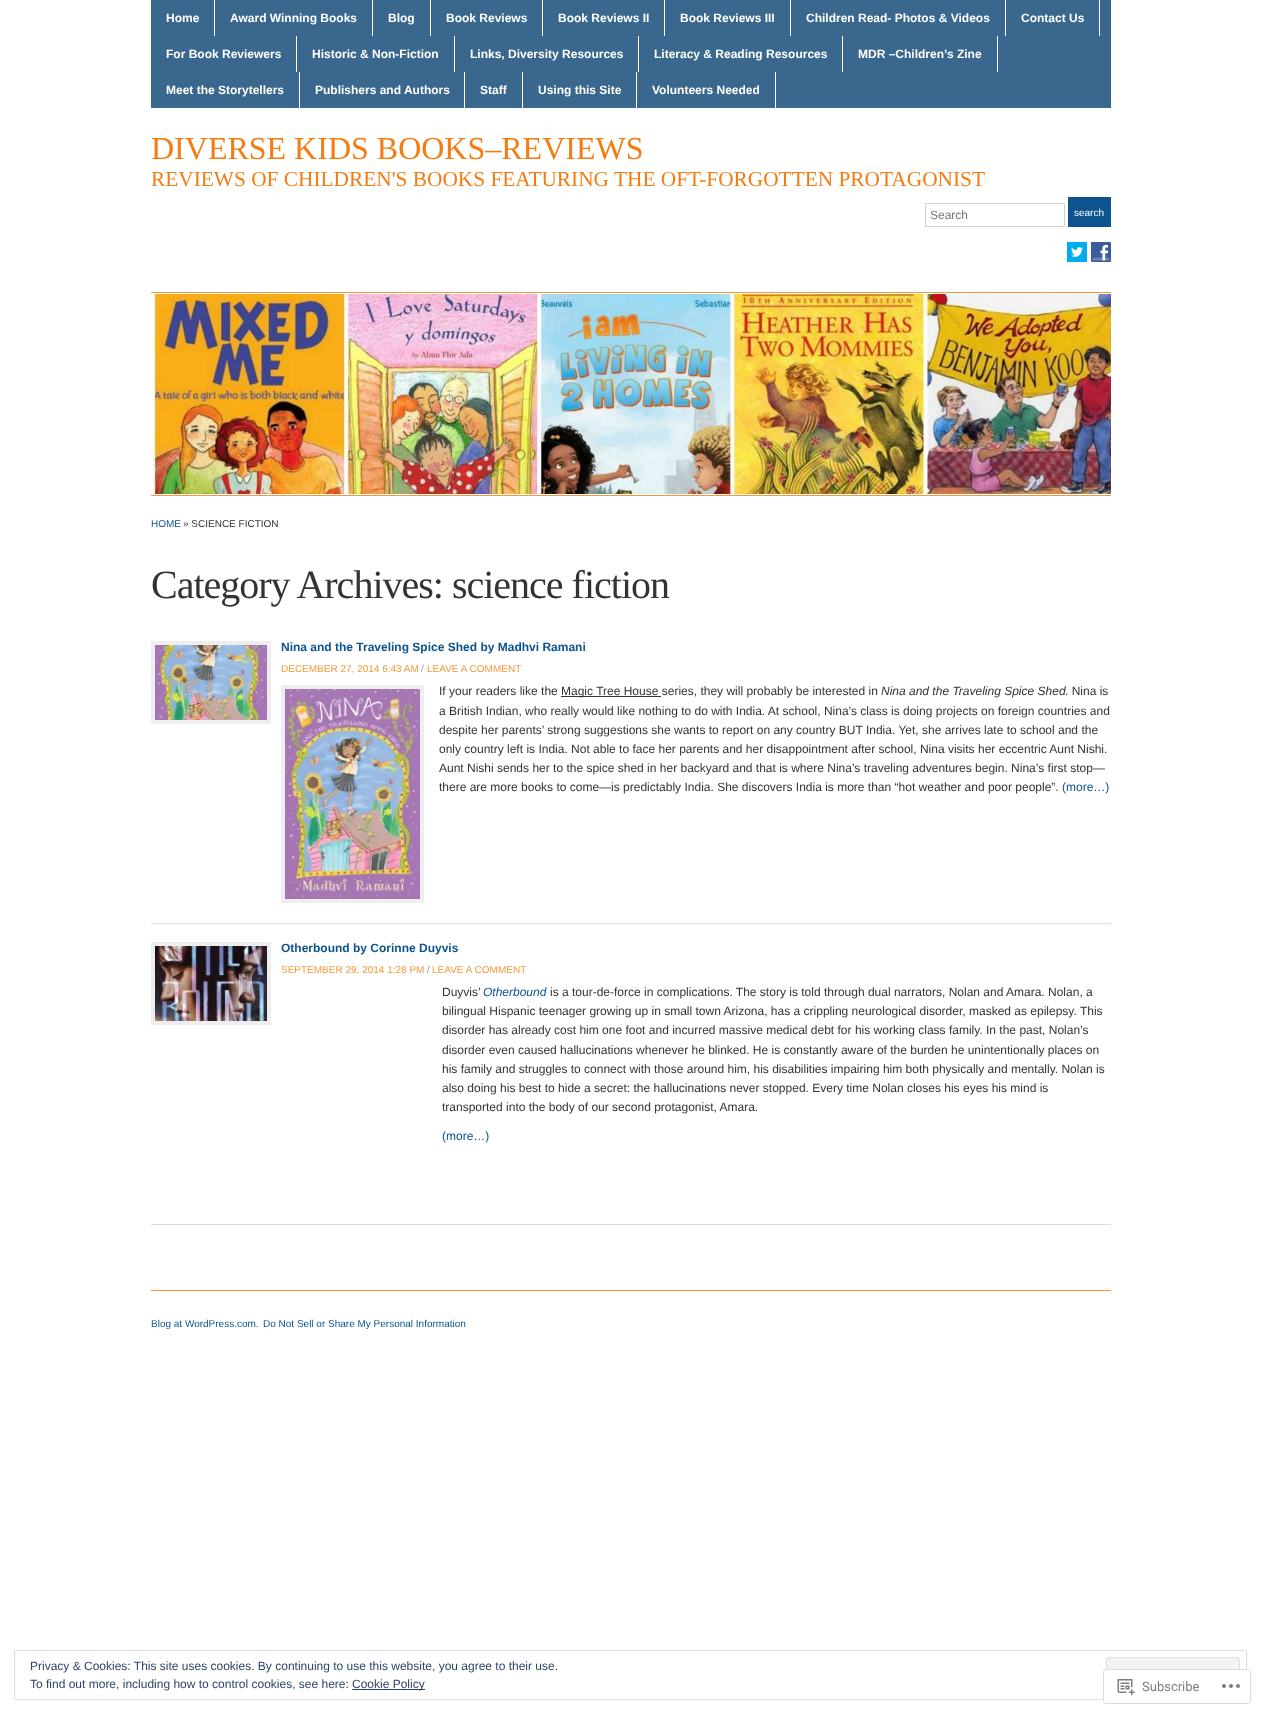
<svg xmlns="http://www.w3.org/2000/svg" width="1261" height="1714">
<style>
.a{font:bold 12px Liberation Sans;fill:#fff}
.b{font:32px Liberation Serif;fill:#f47c13}
.c{font:21.35px Liberation Serif;fill:#f47c13}
.d{font:12px Liberation Sans;fill:#757575}
.e{font:10px Liberation Sans;fill:#fff}
.f{font:10px Liberation Sans;fill:#0c5390}
.g{font:10px Liberation Sans;fill:#333}
.h{font:40px Liberation Serif;letter-spacing:-1px;fill:#333}
.i{font:bold 12px Liberation Sans;fill:#0c5390}
.j{font:10px Liberation Sans;fill:#f99734}
.k{font:10px Liberation Sans;fill:#999}
.l{font:12px Liberation Sans;fill:#333}
.m{font:italic 12px Liberation Sans;fill:#333}
.n{font:12px Liberation Sans;fill:#0c5390}
.o{font:italic 12px Liberation Sans;fill:#0c5390}
.p{font:12px Liberation Sans;fill:#2e4467}
.q{font:13px Roboto;fill:#7b7f84}
</style>
<rect width="100%" height="100%" fill="#fff"/>
<path fill="#3a678d" d="M151 0h960v108H151z"/>
<path fill="#fff" d="M214 0h1v36H214z"/>
<path fill="#fff" d="M372 0h1v36H372z"/>
<path fill="#fff" d="M430 0h1v36H430z"/>
<path fill="#fff" d="M542 0h1v36H542z"/>
<path fill="#fff" d="M664 0h1v36H664z"/>
<path fill="#fff" d="M790 0h1v36H790z"/>
<path fill="#fff" d="M1005 0h1v36H1005z"/>
<path fill="#fff" d="M1099 0h1v36H1099z"/>
<path fill="#fff" d="M296 36h1v36H296z"/>
<path fill="#fff" d="M454 36h1v36H454z"/>
<path fill="#fff" d="M638 36h1v36H638z"/>
<path fill="#fff" d="M842 36h1v36H842z"/>
<path fill="#fff" d="M997 36h1v36H997z"/>
<path fill="#fff" d="M299 72h1v36H299z"/>
<path fill="#fff" d="M464 72h1v36H464z"/>
<path fill="#fff" d="M522 72h1v36H522z"/>
<path fill="#fff" d="M636 72h1v36H636z"/>
<path fill="#fff" d="M775 72h1v36H775z"/>
<path fill="none" stroke="#d1d1d1" d="M925.5 203.5h139v23H925.5z"/>
<path fill="#0c5390" d="M1068 197h43v30H1068z"/>
<image href="1.png" x="1067" y="242" width="20" height="20"/>
<image href="2.png" x="1091" y="242" width="20" height="20"/>
<path fill="#f99734" d="M151 292h960v1H151z"/>
<path fill="#f99734" d="M151 495h960v1H151z"/>
<image href="3.png" x="151" y="294" width="960" height="200"/>
<path fill="#ddd" d="M151 923h960v1H151z"/>
<path fill="none" stroke="#eee" stroke-width="4" d="M153 643h116v79H153z"/>
<image href="4.png" x="155" y="645" width="112" height="75"/>
<path fill="none" stroke="#eee" stroke-width="4" d="M283 687h139v214H283z"/>
<image href="5.png" x="285" y="689" width="135" height="210"/>
<path fill="#333" d="M561 696h100v1H561z"/>
<path fill="#ddd" d="M151 1224h960v1H151z"/>
<path fill="none" stroke="#eee" stroke-width="4" d="M153 944h116v79H153z"/>
<image href="6.png" x="155" y="946" width="112" height="75"/>
<path fill="#f99734" d="M151 1290h960v1H151z"/>
<path fill="none" stroke="#dedede" d="M14.5 1650.5h1232v49H14.5z"/>
<rect fill="#f3f3f3" stroke="#dedede" x="1106.5" y="1657.5" width="133" height="29" rx="2.5"/>
<path fill="#2e4467" d="M352 1689h73v1H352z"/>
<rect fill="#fffffffa" stroke="#dddddf" x="1103.5" y="1669.5" width="147" height="34" rx="2.5"/>
<image href="7.png" x="1117" y="1679" width="18" height="17"/>
<image href="8.png" x="1222" y="1684" width="18" height="4"/>
<text class="a" x="166" y="22">Home</text>
<text class="a" x="230" y="22">Award Winning Books</text>
<text class="a" x="388" y="22">Blog</text>
<text class="a" x="446" y="22">Book Reviews</text>
<text class="a" x="558" y="22">Book Reviews II</text>
<text class="a" x="680" y="22">Book Reviews III</text>
<text class="a" x="806" y="22">Children Read- Photos &amp; Videos</text>
<text class="a" x="1021" y="22">Contact Us</text>
<text class="a" x="166" y="58">For Book Reviewers</text>
<text class="a" x="312" y="58">Historic &amp; Non-Fiction</text>
<text class="a" x="470" y="58">Links, Diversity Resources</text>
<text class="a" x="654" y="58">Literacy &amp; Reading Resources</text>
<text class="a" x="858" y="58">MDR –Children’s Zine</text>
<text class="a" x="166" y="94">Meet the Storytellers</text>
<text class="a" x="315" y="94">Publishers and Authors</text>
<text class="a" x="480" y="94">Staff</text>
<text class="a" x="538" y="94">Using this Site</text>
<text class="a" x="652" y="94">Volunteers Needed</text>
<text class="b" x="151" y="159">DIVERSE KIDS BOOKS–REVIEWS</text>
<text class="c" x="151" y="186">REVIEWS OF CHILDREN'S BOOKS FEATURING THE OFT-FORGOTTEN PROTAGONIST</text>
<text class="d" x="930" y="219">Search</text>
<text class="e" x="1074" y="216">search</text>
<text class="f" x="151" y="527">HOME</text>
<text class="g" x="183" y="527">» SCIENCE FICTION</text>
<text class="h" x="151" y="598">Category Archives: science fiction</text>
<text class="i" x="281" y="651">Nina and the Traveling Spice Shed by Madhvi Ramani</text>
<text class="j" x="281" y="672">DECEMBER 27, 2014 6:43 AM</text>
<text class="k" x="421" y="672">/</text>
<text class="j" x="427" y="672">LEAVE A COMMENT</text>
<text class="l" x="439" y="695">If your readers like the</text>
<text class="l" x="561" y="695">Magic Tree House series, they will probably be interested in</text>
<text class="m" x="881" y="695">Nina and the Traveling Spice Shed</text>
<text class="l" x="1065" y="695">. Nina is</text>
<text class="l" x="439" y="715">a British Indian, who really would like nothing to do with India. At school, Nina’s class is doing projects on foreign countries and</text>
<text class="l" x="439" y="734">despite her parents’ strong suggestions she wants to report on any country BUT India. Yet, she arrives late to school and the</text>
<text class="l" x="439" y="753">only country left is India. Not able to face her parents and her disappointment after school, Nina visits her eccentric Aunt Nishi.</text>
<text class="l" x="439" y="772">Aunt Nishi sends her to the spice shed in her backyard and that is where Nina’s traveling adventures begin. Nina’s first stop—</text>
<text class="l" x="439" y="791">there are more books to come—is predictably India. She discovers India is more than “hot weather and poor people”.</text>
<text class="n" x="1062" y="791">(more…)</text>
<text class="i" x="281" y="952">Otherbound by Corinne Duyvis</text>
<text class="j" x="281" y="973">SEPTEMBER 29, 2014 1:28 PM</text>
<text class="k" x="427" y="973">/</text>
<text class="j" x="432" y="973">LEAVE A COMMENT</text>
<text class="l" x="442" y="996">Duyvis’</text>
<text class="o" x="483" y="996">Otherbound</text>
<text class="l" x="550" y="996">is a tour-de-force in complications. The story is told through dual narrators, Nolan and Amara. Nolan, a</text>
<text class="l" x="442" y="1015">bilingual Hispanic teenager growing up in small town Arizona, has a crippling neurological disorder, masked as epilepsy. This</text>
<text class="l" x="442" y="1034">disorder has already cost him one foot and incurred massive medical debt for his working class family. In the past, Nolan’s</text>
<text class="l" x="442" y="1054">disorder even caused hallucinations whenever he blinked. He is constantly aware of the burden he unintentionally places on</text>
<text class="l" x="442" y="1073">his family and struggles to connect with those around him, his disabilities impairing him both physically and mentally. Nolan is</text>
<text class="l" x="442" y="1092">also doing his best to hide a secret: the hallucinations never stopped. Every time Nolan closes his eyes his mind is</text>
<text class="l" x="442" y="1111">transported into the body of our second protagonist, Amara.</text>
<text class="n" x="442" y="1140">(more…)</text>
<text class="f" x="151" y="1327">Blog at WordPress.com.</text>
<text class="f" x="263" y="1327">Do Not Sell or Share My Personal Information</text>
<text class="p" x="30" y="1670">Privacy &amp; Cookies: This site uses cookies. By continuing to use this website, you agree to their use.</text>
<text class="p" x="30" y="1688">To find out more, including how to control cookies, see here:</text>
<text class="p" x="352" y="1688">Cookie Policy</text>
<text class="q" x="1142" y="1691">Subscribe</text>
</svg>
